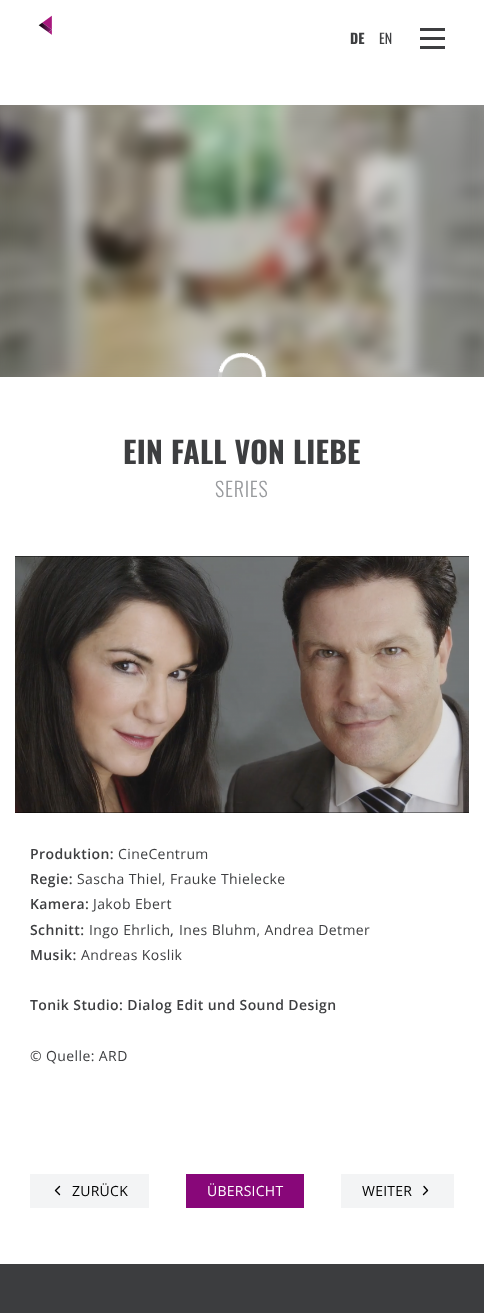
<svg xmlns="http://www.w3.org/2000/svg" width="484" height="1313">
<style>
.a{font:bold 14px Oswald;fill:#3d3e40}
.b{font:14px Oswald;fill:#3d3e40}
.c{font:bold 30px Oswald;letter-spacing:0.25px;fill:#3d3e40}
.d{font:300 20px Oswald;letter-spacing:0.75px;fill:#989a9d}
.e{font:600 14px Open Sans;letter-spacing:0.4px;fill:#3d3e40}
.f{font:14px Open Sans;letter-spacing:0.4px;fill:#3d3e40}
.g{font:14px Open Sans;letter-spacing:0.25px;fill:#000}
.h{font:14px Open Sans;letter-spacing:0.25px;fill:#fff}
</style>
<rect width="100%" height="100%" fill="#fff"/>
<image href="1.png" x="38" y="15" width="14" height="20"/>
<path fill="#3d3e40" d="M420 28h25v3H420z"/>
<path fill="#3d3e40" d="M420 37h25v3H420z"/>
<path fill="#3d3e40" d="M420 46h25v3H420z"/>
<image href="2.png" x="0" y="105" width="484" height="272"/>
<image href="3.png" x="15" y="556" width="454" height="257"/>
<path fill="#f3f4f5" d="M30 1174h119v34H30z"/>
<path fill="none" stroke="#000" stroke-width="1.4" stroke-linecap="round" stroke-linejoin="round" d="M59.5 1186.5l-4 4l4 4"/>
<path fill="#880779" d="M186 1174h118v34H186z"/>
<path fill="#f3f4f5" d="M341 1174h113v34H341z"/>
<path fill="none" stroke="#000" stroke-width="1.4" stroke-linecap="round" stroke-linejoin="round" d="M423.5 1194.5l4-4l-3.5-4"/>
<path fill="#3c3d3f" d="M0 1264h484v49H0z"/>
<text class="a" x="350" y="44">DE</text>
<text class="b" x="379" y="44">EN</text>
<text class="c" x="123" y="464">EIN FALL VON LIEBE</text>
<text class="d" x="215" y="497">SERIES</text>
<text class="e" x="30" y="859">Produktion:</text>
<text class="f" x="118" y="859">CineCentrum</text>
<text class="e" x="30" y="884">Regie:</text>
<text class="f" x="77" y="884">Sascha Thiel, Frauke Thielecke</text>
<text class="e" x="30" y="909">Kamera:</text>
<text class="f" x="93" y="909">Jakob Ebert</text>
<text class="e" x="30" y="935">Schnitt:</text>
<text class="f" x="89" y="935">Ingo Ehrlich</text>
<text class="e" x="170" y="935">,</text>
<text class="f" x="179" y="935">Ines Bluhm, Andrea Detmer</text>
<text class="e" x="30" y="960">Musik:</text>
<text class="f" x="81" y="960">Andreas Koslik</text>
<text class="e" x="30" y="1010">Tonik Studio: Dialog Edit und Sound Design</text>
<text class="f" x="30" y="1061">© Quelle: ARD</text>
<text class="g" x="72" y="1196">ZURÜCK</text>
<text class="h" x="207" y="1196">ÜBERSICHT</text>
<text class="g" x="362" y="1196">WEITER</text>
</svg>
